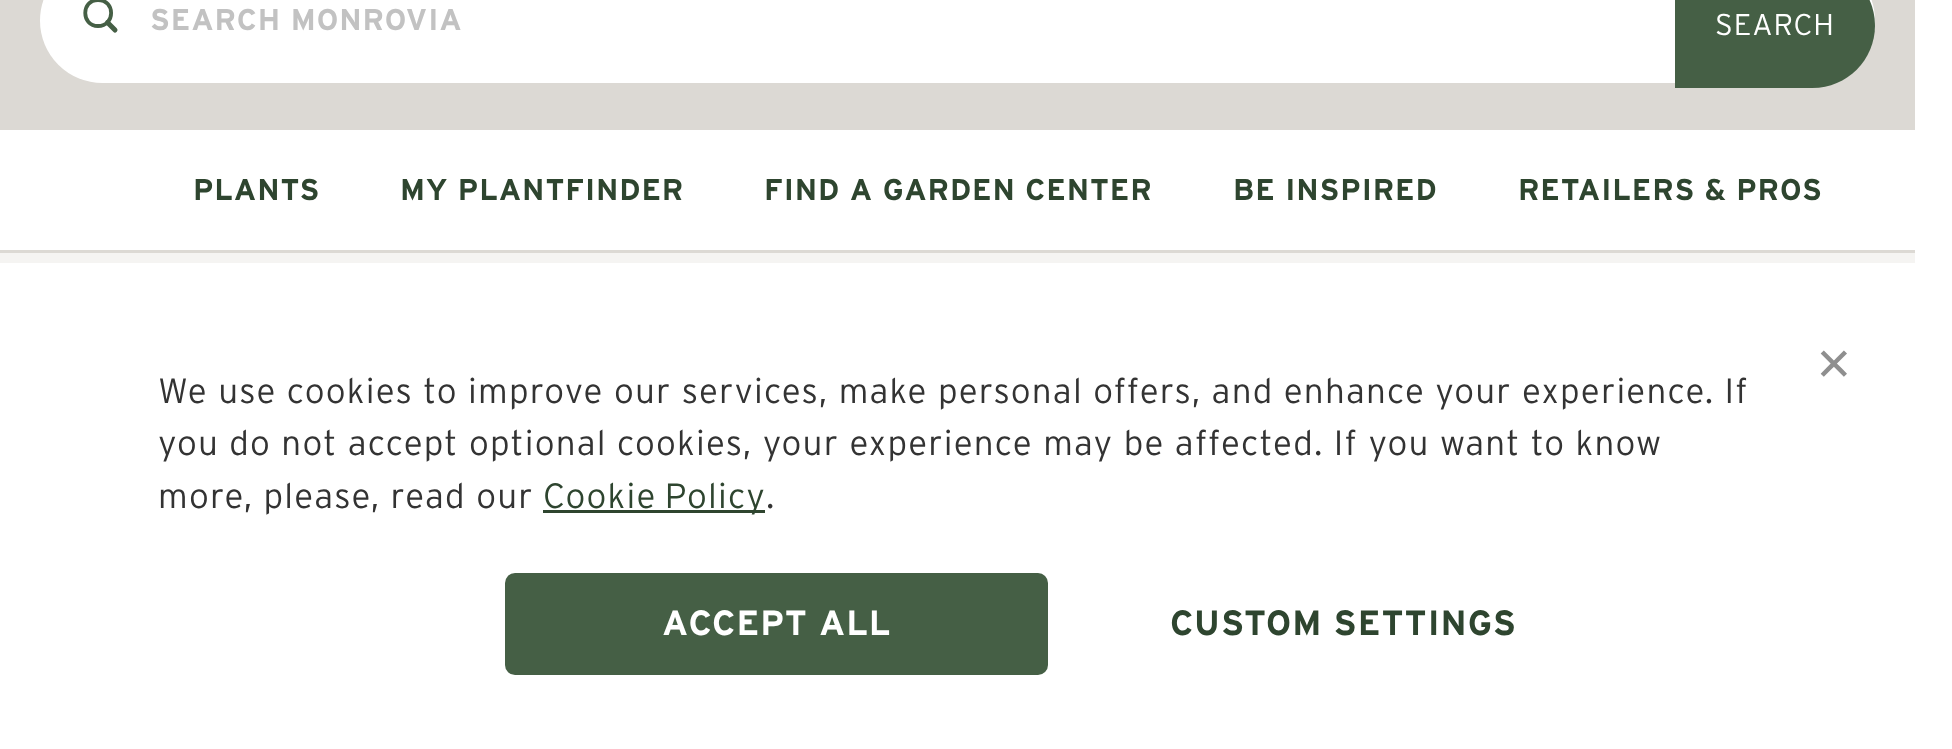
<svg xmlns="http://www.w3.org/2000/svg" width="1952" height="749">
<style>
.a{font:bold 30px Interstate;letter-spacing:0.9px;fill:#c2c2c2}
.b{font:300 30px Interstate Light;letter-spacing:0.9px;fill:#fff}
.c{font:bold 30px Interstate;letter-spacing:0.9px;fill:#2e452f}
.d{font:45px DejaVu Sans;letter-spacing:1.2px;fill:#8f8f8f}
.e{font:300 35px Interstate Light;letter-spacing:1.2px;fill:#333}
.f{font:300 35px Interstate Light;letter-spacing:1.2px;fill:#2e452f}
.g{font:bold 35px Interstate;letter-spacing:1px;fill:#fff}
.h{font:bold 35px Interstate;letter-spacing:1px;fill:#2e452f}
</style>
<rect width="100%" height="100%" fill="#fff"/>
<path fill="#f5f4f2" d="M0 253h1915v10H0z"/>
<path fill="#dcd9d4" d="M0 0h1915v130H0z"/>
<rect fill="#fff" x="40" y="-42" width="1835" height="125" rx="62.5"/>
<path fill="none" stroke="#455f45" stroke-width="3.8" stroke-linecap="round" stroke-linejoin="round" d="M98 26c17.5 0 17.5-26 0-26c-17 0-17 26 0 26z"/>
<path fill="none" stroke="#455f45" stroke-width="5" stroke-linecap="round" stroke-linejoin="round" d="M107.5 22.5l7.5 7.5"/>
<path fill="#455f45" d="M1675-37h137.5c34.5 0 62.5 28 62.5 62.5c0 34.5-28 62.5-62.5 62.5h-137.5z"/>
<path fill="#dcd9d4" d="M0 250h1915v3H0z"/>
<path fill="#2e452f" d="M543 510h222v3H543z"/>
<rect fill="#455f45" x="505" y="573" width="543" height="102" rx="10"/>
<text class="a" x="150" y="30">SEARCH MONROVIA</text>
<text class="b" x="1715" y="35">SEARCH</text>
<text class="c" x="193" y="200">PLANTS</text>
<text class="c" x="400" y="200">MY PLANTFINDER</text>
<text class="c" x="764" y="200">FIND A GARDEN CENTER</text>
<text class="c" x="1233" y="200">BE INSPIRED</text>
<text class="c" x="1518" y="200">RETAILERS &amp; PROS</text>
<text class="d" x="1815" y="380">✕</text>
<text class="e" x="158" y="403">We use cookies to improve our services, make personal offers, and enhance your experience. If</text>
<text class="e" x="158" y="455">you do not accept optional cookies, your experience may be affected. If you want to know</text>
<text class="e" x="158" y="508">more, please, read our</text>
<text class="f" x="543" y="508" word-spacing="-2">Cookie Policy</text>
<text class="e" x="766" y="508">.</text>
<text class="g" x="662" y="635">ACCEPT ALL</text>
<text class="h" x="1170" y="635">CUSTOM SETTINGS</text>
</svg>
